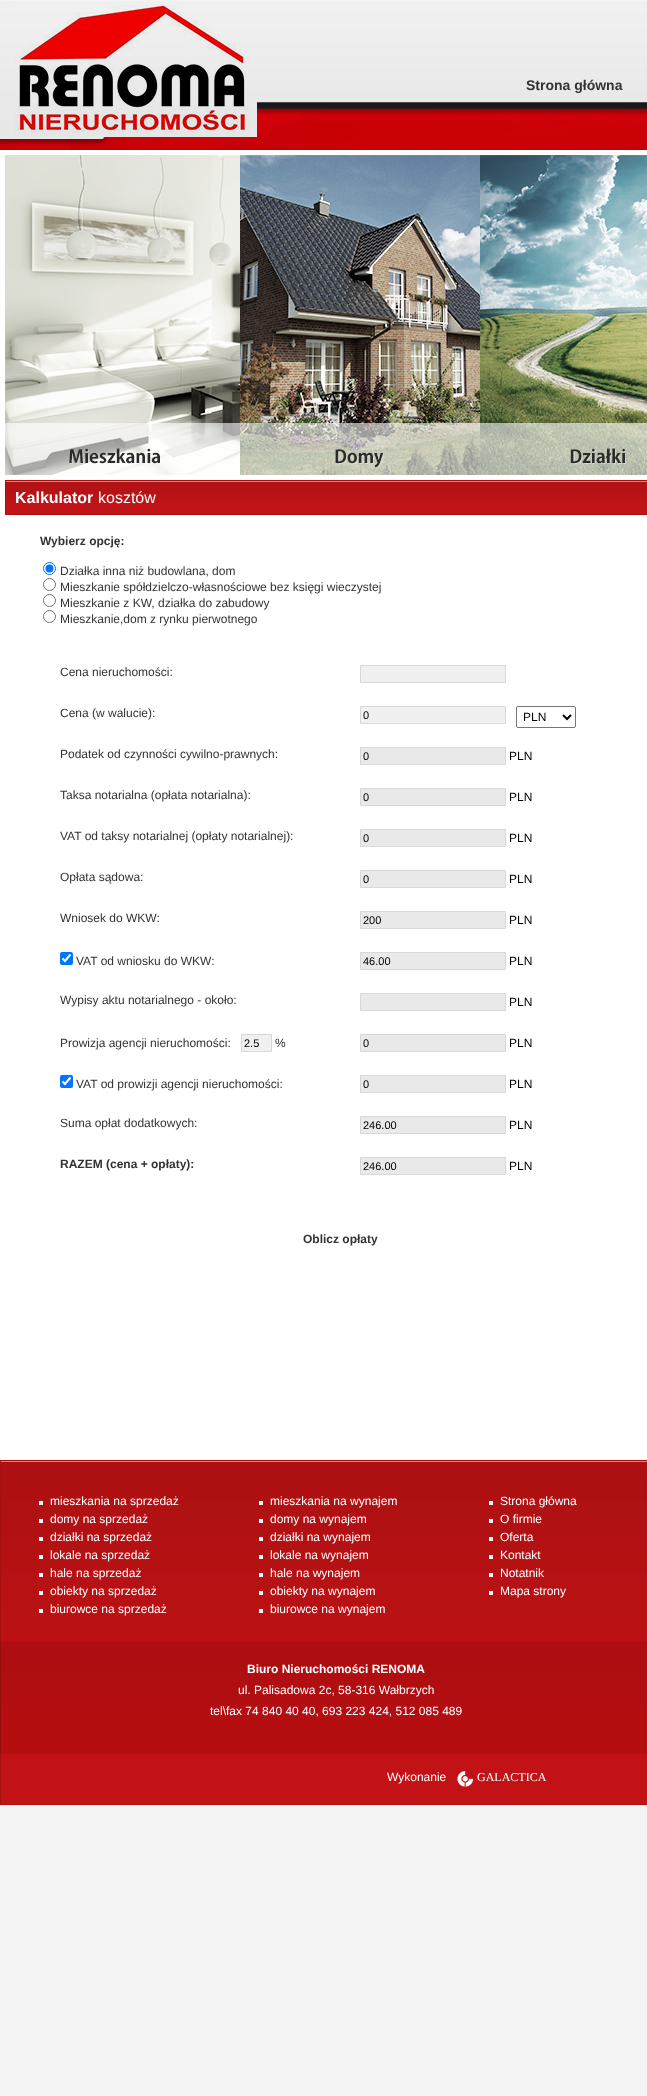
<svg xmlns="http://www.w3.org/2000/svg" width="647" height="2096">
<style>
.a{font:bold 14px Liberation Sans;fill:#333}
.b{font:bold 16px Liberation Sans;fill:#fff}
.c{font:16px Liberation Sans;fill:#fff}
.d{font:bold 12px Liberation Sans;fill:#333}
.e{font:12px Liberation Sans;fill:#333}
.f{font:11px Liberation Sans;fill:#000}
.g{font:12px Liberation Sans;fill:#000}
.h{font:12px Liberation Sans;fill:#fff}
.i{font:bold 12px Liberation Sans;fill:#fff}
.j{font:12px Liberation Serif;fill:#fff}
</style>
<rect width="100%" height="100%" fill="#f4f4f4"/>
<image href="1.png" x="0" y="1" width="647" height="149"/>
<image href="2.png" x="0" y="4" width="257" height="133"/>
<path fill="#fff" d="M0 150h647v1277H0z"/>
<image href="3.png" x="5" y="155" width="235" height="320"/>
<image href="4.png" x="240" y="155" width="240" height="320"/>
<image href="5.png" x="480" y="155" width="167" height="320"/>
<image href="6.png" x="5" y="480" width="642" height="35"/>
<circle fill="none" stroke="#0075ff" cx="49.5" cy="568.5" r="6"/>
<circle fill="#0075ff" cx="49.5" cy="568.5" r="4"/>
<circle fill="none" stroke="#767676" cx="49.5" cy="584.5" r="6"/>
<circle fill="none" stroke="#767676" cx="49.5" cy="600.5" r="6"/>
<circle fill="none" stroke="#767676" cx="49.5" cy="616.5" r="6"/>
<path fill="#f0f0f0" stroke="#d9d8d8" d="M360.5 665.5h145v17H360.5z"/>
<path fill="#f0f0f0" stroke="#d9d8d8" d="M360.5 706.5h145v17H360.5z"/>
<rect fill="none" stroke="#767676" x="516.5" y="706.5" width="59" height="21" rx="1.5"/>
<path fill="none" stroke="#000" stroke-width="2" d="M563 715l4 4l4-4"/>
<path fill="#e9e9e9" stroke="#d9d8d8" d="M360.5 747.5h145v17H360.5z"/>
<path fill="#e9e9e9" stroke="#d9d8d8" d="M360.5 788.5h145v17H360.5z"/>
<path fill="#e9e9e9" stroke="#d9d8d8" d="M360.5 829.5h145v17H360.5z"/>
<path fill="#e9e9e9" stroke="#d9d8d8" d="M360.5 870.5h145v17H360.5z"/>
<path fill="#e9e9e9" stroke="#d9d8d8" d="M360.5 911.5h145v17H360.5z"/>
<rect fill="#0075ff" x="60" y="952" width="13" height="13" rx="2"/>
<path fill="none" stroke="#fff" stroke-width="2.1" d="M62.5 958.5l2.5 2.5l5.5-6.5"/>
<path fill="#e9e9e9" stroke="#d9d8d8" d="M360.5 952.5h145v17H360.5z"/>
<path fill="#e9e9e9" stroke="#d9d8d8" d="M360.5 993.5h145v17H360.5z"/>
<path fill="#f0f0f0" stroke="#d9d8d8" d="M241.5 1034.5h30v17H241.5z"/>
<path fill="#e9e9e9" stroke="#d9d8d8" d="M360.5 1034.5h145v17H360.5z"/>
<rect fill="#0075ff" x="60" y="1075" width="13" height="13" rx="2"/>
<path fill="none" stroke="#fff" stroke-width="2.1" d="M62.5 1081.5l2.5 2.5l5.5-6.5"/>
<path fill="#e9e9e9" stroke="#d9d8d8" d="M360.5 1075.5h145v17H360.5z"/>
<path fill="#e9e9e9" stroke="#d9d8d8" d="M360.5 1116.5h145v17H360.5z"/>
<path fill="#e9e9e9" stroke="#d9d8d8" d="M360.5 1157.5h145v17H360.5z"/>
<image href="7.png" x="0" y="1427" width="647" height="378"/>
<path fill="#fff" d="M39 1501h4v4H39z"/>
<path fill="#fff" d="M39 1519h4v4H39z"/>
<path fill="#fff" d="M39 1537h4v4H39z"/>
<path fill="#fff" d="M39 1555h4v4H39z"/>
<path fill="#fff" d="M39 1573h4v4H39z"/>
<path fill="#fff" d="M39 1591h4v4H39z"/>
<path fill="#fff" d="M39 1609h4v4H39z"/>
<path fill="#fff" d="M259 1501h4v4H259z"/>
<path fill="#fff" d="M259 1519h4v4H259z"/>
<path fill="#fff" d="M259 1537h4v4H259z"/>
<path fill="#fff" d="M259 1555h4v4H259z"/>
<path fill="#fff" d="M259 1573h4v4H259z"/>
<path fill="#fff" d="M259 1591h4v4H259z"/>
<path fill="#fff" d="M259 1609h4v4H259z"/>
<path fill="#fff" d="M489 1501h4v4H489z"/>
<path fill="#fff" d="M489 1519h4v4H489z"/>
<path fill="#fff" d="M489 1537h4v4H489z"/>
<path fill="#fff" d="M489 1555h4v4H489z"/>
<path fill="#fff" d="M489 1573h4v4H489z"/>
<path fill="#fff" d="M489 1591h4v4H489z"/>
<image href="8.png" x="457" y="1771" width="17" height="16"/>
<text class="a" x="526" y="90">Strona główna</text>
<text class="b" x="15" y="503">Kalkulator</text>
<text class="c" x="98" y="503">kosztów</text>
<text class="d" x="40" y="545">Wybierz opcję:</text>
<text class="e" x="60" y="575">Działka inna niż budowlana, dom</text>
<text class="e" x="60" y="591">Mieszkanie spółdzielczo-własnościowe bez księgi wieczystej</text>
<text class="e" x="60" y="607">Mieszkanie z KW, działka do zabudowy</text>
<text class="e" x="60" y="623">Mieszkanie,dom z rynku pierwotnego</text>
<text class="e" x="60" y="676">Cena nieruchomości:</text>
<text class="e" x="60" y="717">Cena (w walucie):</text>
<text class="f" x="363" y="719">0</text>
<text class="g" x="523" y="721">PLN</text>
<text class="e" x="60" y="758">Podatek od czynności cywilno-prawnych:</text>
<text class="f" x="363" y="760">0</text>
<text class="g" x="509" y="760">PLN</text>
<text class="e" x="60" y="799">Taksa notarialna (opłata notarialna):</text>
<text class="f" x="363" y="801">0</text>
<text class="g" x="509" y="801">PLN</text>
<text class="e" x="60" y="840">VAT od taksy notarialnej (opłaty notarialnej):</text>
<text class="f" x="363" y="842">0</text>
<text class="g" x="509" y="842">PLN</text>
<text class="e" x="60" y="881">Opłata sądowa:</text>
<text class="f" x="363" y="883">0</text>
<text class="g" x="509" y="883">PLN</text>
<text class="e" x="60" y="922">Wniosek do WKW:</text>
<text class="f" x="363" y="924">200</text>
<text class="g" x="509" y="924">PLN</text>
<text class="e" x="76" y="965">VAT od wniosku do WKW:</text>
<text class="f" x="363" y="965">46.00</text>
<text class="g" x="509" y="965">PLN</text>
<text class="e" x="60" y="1004">Wypisy aktu notarialnego - około:</text>
<text class="g" x="509" y="1006">PLN</text>
<text class="e" x="60" y="1047">Prowizja agencji nieruchomości:</text>
<text class="f" x="244" y="1047">2.5</text>
<text class="e" x="275" y="1047">%</text>
<text class="f" x="363" y="1047">0</text>
<text class="g" x="509" y="1047">PLN</text>
<text class="e" x="76" y="1088">VAT od prowizji agencji nieruchomości:</text>
<text class="f" x="363" y="1088">0</text>
<text class="g" x="509" y="1088">PLN</text>
<text class="e" x="60" y="1127">Suma opłat dodatkowych:</text>
<text class="f" x="363" y="1129">246.00</text>
<text class="g" x="509" y="1129">PLN</text>
<text class="d" x="60" y="1168">RAZEM (cena + opłaty):</text>
<text class="f" x="363" y="1170">246.00</text>
<text class="g" x="509" y="1170">PLN</text>
<text class="d" x="303" y="1243">Oblicz opłaty</text>
<text class="h" x="50" y="1505">mieszkania na sprzedaż</text>
<text class="h" x="50" y="1523">domy na sprzedaż</text>
<text class="h" x="50" y="1541">działki na sprzedaż</text>
<text class="h" x="50" y="1559">lokale na sprzedaż</text>
<text class="h" x="50" y="1577">hale na sprzedaż</text>
<text class="h" x="50" y="1595">obiekty na sprzedaż</text>
<text class="h" x="50" y="1613">biurowce na sprzedaż</text>
<text class="h" x="270" y="1505">mieszkania na wynajem</text>
<text class="h" x="270" y="1523">domy na wynajem</text>
<text class="h" x="270" y="1541">działki na wynajem</text>
<text class="h" x="270" y="1559">lokale na wynajem</text>
<text class="h" x="270" y="1577">hale na wynajem</text>
<text class="h" x="270" y="1595">obiekty na wynajem</text>
<text class="h" x="270" y="1613">biurowce na wynajem</text>
<text class="h" x="500" y="1505">Strona główna</text>
<text class="h" x="500" y="1523">O firmie</text>
<text class="h" x="500" y="1541">Oferta</text>
<text class="h" x="500" y="1559">Kontakt</text>
<text class="h" x="500" y="1577">Notatnik</text>
<text class="h" x="500" y="1595">Mapa strony</text>
<text class="i" x="247" y="1673">Biuro Nieruchomości RENOMA</text>
<text class="h" x="238" y="1694">ul. Palisadowa 2c, 58-316 Wałbrzych</text>
<text class="h" x="210" y="1715">tel\fax 74 840 40 40, 693 223 424, 512 085 489</text>
<text class="h" x="387" y="1781">Wykonanie</text>
<text class="j" x="477" y="1781">GALACTICA</text>
</svg>
